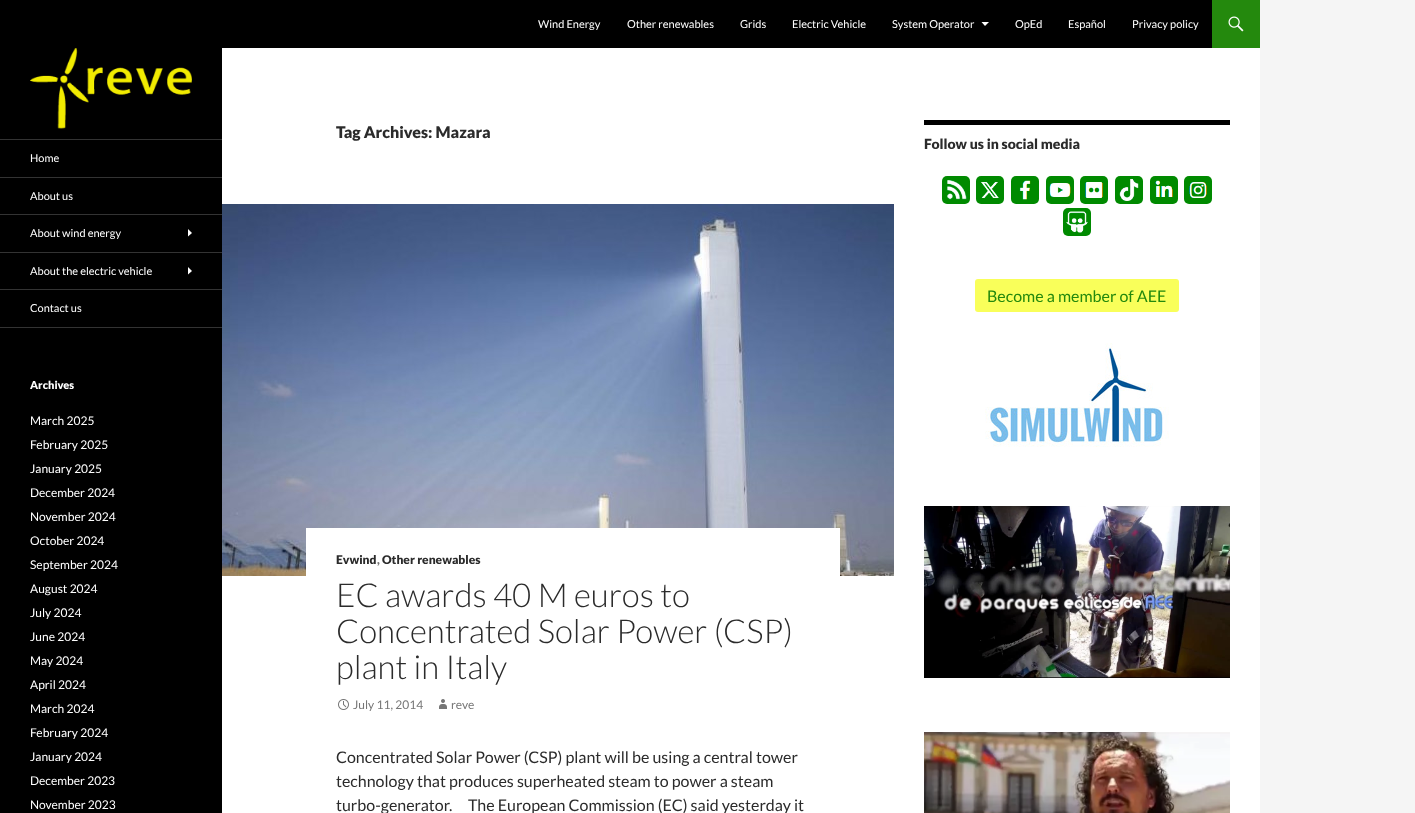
<svg xmlns="http://www.w3.org/2000/svg" width="1415" height="813">
<style>
.a{font:11px Lato;fill:#fff}
.b{font:900 11px Lato;fill:#fff}
.c{font:12px Lato;fill:#fff}
.d{font:900 16px Lato;fill:#2b2b2b}
.e{font:900 12px Lato;fill:#2b2b2b}
.f{font:900 12px Lato;fill:#767676}
.g{font:300 33px Lato;fill:#2b2b2b}
.h{font:12px Lato;fill:#767676}
.i{font:16px Lato;fill:#2b2b2b}
.j{font:900 14px Lato;fill:#2b2b2b}
.k{font:16px Lato;fill:#24890d}
</style>
<rect width="100%" height="100%" fill="#f5f5f5"/>
<path fill="#fff" d="M222 48h1038v765H222z"/>
<path fill="#000" d="M0 0h1212v48H0z"/>
<path fill="#fff" d="M981.5 22l3.5 4l4-4z"/>
<path fill="#24890d" d="M1212 0h48v48H1212z"/>
<image href="1.png" x="1228" y="16" width="16" height="16"/>
<path fill="#000" d="M0 48h222v765H0z"/>
<image href="2.png" x="30" y="48" width="162" height="81"/>
<path fill="#333" d="M0 327h222v1H0z"/>
<path fill="#333" d="M0 139h222v1H0z"/>
<path fill="#333" d="M0 177h222v1H0z"/>
<path fill="#333" d="M0 214h222v1H0z"/>
<path fill="#fff" d="M188 236.5l4-3.5l-4-4z"/>
<path fill="#333" d="M0 252h222v1H0z"/>
<path fill="#fff" d="M188 274.5l4-3.5l-4-4z"/>
<path fill="#333" d="M0 289h222v1H0z"/>
<image href="3.png" x="222" y="204" width="672" height="372"/>
<path fill="#fff" d="M306 528h534v48H306z"/>
<image href="4.png" x="338" y="699" width="11" height="11"/>
<image href="5.png" x="439" y="699" width="8" height="10"/>
<path fill="#000" d="M924 120h306v5H924z"/>
<image href="6.png" x="942" y="176" width="28" height="28"/>
<image href="7.png" x="976" y="176" width="28" height="28"/>
<image href="8.png" x="1011" y="176" width="28" height="28"/>
<image href="9.png" x="1046" y="176" width="28" height="28"/>
<image href="10.png" x="1080" y="176" width="28" height="28"/>
<image href="11.png" x="1115" y="176" width="28" height="28"/>
<image href="12.png" x="1150" y="176" width="28" height="28"/>
<image href="13.png" x="1184" y="176" width="28" height="28"/>
<image href="14.png" x="1063" y="208" width="28" height="28"/>
<rect fill="#f9ff5a" x="975" y="279" width="204" height="33" rx="3"/>
<image href="15.png" x="985" y="343" width="184" height="104"/>
<image href="16.png" x="924" y="506" width="306" height="172"/>
<image href="17.png" x="924" y="732" width="306" height="81"/>
<text class="a" x="538" y="28">Wind Energy</text>
<text class="a" x="627" y="28">Other renewables</text>
<text class="a" x="740" y="28">Grids</text>
<text class="a" x="792" y="28">Electric Vehicle</text>
<text class="a" x="892" y="28">System Operator</text>
<text class="a" x="1015" y="28">OpEd</text>
<text class="a" x="1068" y="28">Español</text>
<text class="a" x="1132" y="28">Privacy policy</text>
<text class="a" x="30" y="162">Home</text>
<text class="a" x="30" y="200">About us</text>
<text class="a" x="30" y="237">About wind energy</text>
<text class="a" x="30" y="275">About the electric vehicle</text>
<text class="a" x="30" y="312">Contact us</text>
<text class="b" x="30" y="389">Archives</text>
<text class="c" x="30" y="425">March 2025</text>
<text class="c" x="30" y="449">February 2025</text>
<text class="c" x="30" y="473">January 2025</text>
<text class="c" x="30" y="497">December 2024</text>
<text class="c" x="30" y="521">November 2024</text>
<text class="c" x="30" y="545">October 2024</text>
<text class="c" x="30" y="569">September 2024</text>
<text class="c" x="30" y="593">August 2024</text>
<text class="c" x="30" y="617">July 2024</text>
<text class="c" x="30" y="641">June 2024</text>
<text class="c" x="30" y="665">May 2024</text>
<text class="c" x="30" y="689">April 2024</text>
<text class="c" x="30" y="713">March 2024</text>
<text class="c" x="30" y="737">February 2024</text>
<text class="c" x="30" y="761">January 2024</text>
<text class="c" x="30" y="785">December 2023</text>
<text class="c" x="30" y="809">November 2023</text>
<text class="d" x="336" y="138">Tag Archives: Mazara</text>
<text class="e" x="336" y="564">Evwind</text>
<text class="f" x="377" y="564">,</text>
<text class="e" x="382" y="564">Other renewables</text>
<text class="g" x="336" y="607">EC awards 40 M euros to</text>
<text class="g" x="336" y="643">Concentrated Solar Power (CSP)</text>
<text class="g" x="336" y="679">plant in Italy</text>
<text class="h" x="353" y="709">July 11, 2014</text>
<text class="h" x="451" y="709">reve</text>
<text class="i" x="336" y="763">Concentrated Solar Power (CSP) plant will be using a central tower</text>
<text class="i" x="336" y="787">technology that produces superheated steam to power a steam</text>
<text class="i" xml:space="preserve" x="336" y="811">turbo-generator.     The European Commission (EC) said yesterday it</text>
<text class="j" x="924" y="149">Follow us in social media</text>
<text class="k" x="987" y="302">Become a member of AEE</text>
</svg>
